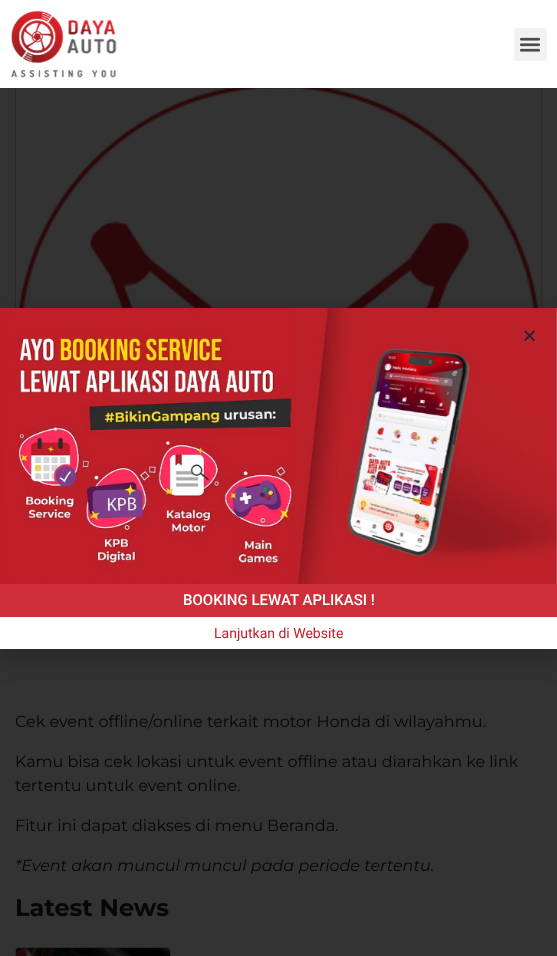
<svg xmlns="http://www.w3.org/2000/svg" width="557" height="956">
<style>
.a{font:500 15px Roboto;fill:#fff}
.b{font:14px Roboto;fill:#c01e29}
.c{font:16px Montserrat;fill:#070708}
.d{font:italic 16px Montserrat;fill:#070708}
.e{font:bold 24px Montserrat;fill:#070708}
</style>
<rect width="100%" height="100%" fill="#333"/>
<path fill="none" stroke="#292a2c" d="M15.5 82.5h526v526H15.5z"/>
<path fill="#fff" d="M0 0h557v88H0z"/>
<image href="1.png" x="11" y="10" width="106" height="68"/>
<rect fill="#f2f2f2" x="514" y="28" width="33" height="33" rx="3"/>
<image href="2.png" x="519" y="37" width="22" height="15"/>
<image href="5.png" x="19" y="88" width="519" height="220"/>
<path fill="#00000033" filter="blur(11.5px)" d="M-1 313h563v347H-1z"/>
<path fill="#fff" d="M0 308h557v341H0z"/>
<image href="4.png" x="0" y="308" width="557" height="276"/>
<image href="3.png" x="524" y="330" width="11" height="11"/>
<path fill="#ce2e39" d="M0 584h557v33H0z"/>
<rect fill="none" stroke="#292a2c" x="15.5" y="947.5" width="155" height="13" rx="3.5"/>
<image href="6.png" x="16" y="948" width="154" height="8"/>
<text class="a" x="183" y="605">BOOKING LEWAT APLIKASI !</text>
<text class="b" x="214" y="638">Lanjutkan di Website</text>
<text class="c" x="15" y="727">Cek event offline/online terkait motor Honda di wilayahmu.</text>
<text class="c" x="15" y="767">Kamu bisa cek lokasi untuk event offline atau diarahkan ke link</text>
<text class="c" x="15" y="791">tertentu untuk event online.</text>
<text class="c" x="15" y="831">Fitur ini dapat diakses di menu Beranda.</text>
<text class="d" x="15" y="871">*Event akan muncul muncul pada periode tertentu.</text>
<text class="e" x="15" y="916">Latest News</text>
</svg>
